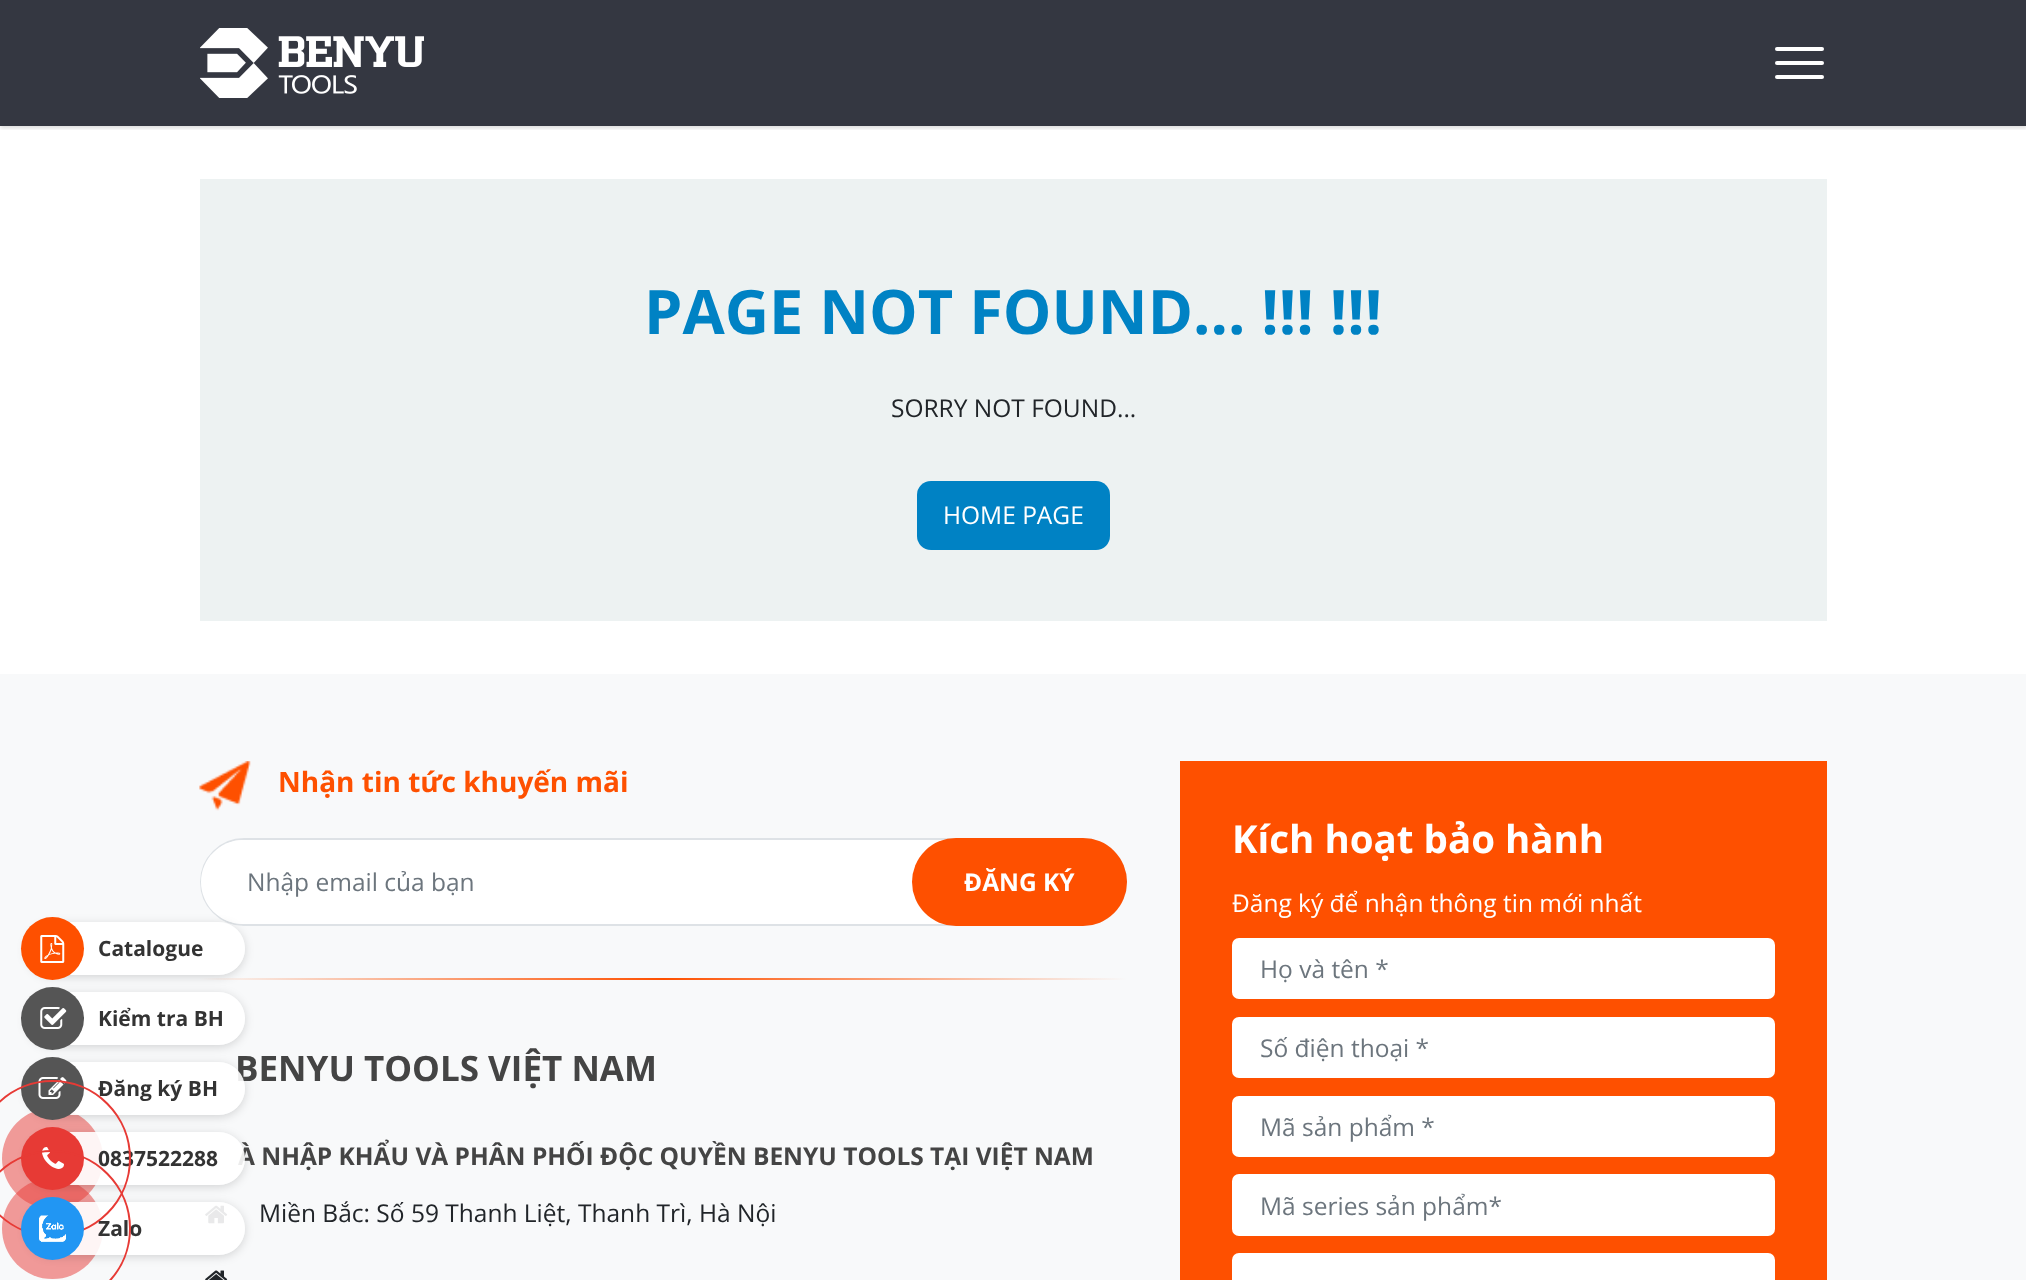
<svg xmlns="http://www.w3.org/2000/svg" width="2026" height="1280">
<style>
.a{font:bold 61.25px Open Sans;fill:#0082c4}
.b{font:24.5px Open Sans;fill:#212529}
.c{font:24.5px Open Sans;fill:#fff}
.d{font:bold 21px Open Sans;fill:#333}
.e{font:bold 28px Open Sans;fill:#fe5000}
.f{font:24.5px Open Sans;fill:#6c757d}
.g{font:bold 24.5px Open Sans;fill:#fff}
.h{font:bold 35px Open Sans;fill:#444}
.i{font:bold 24.5px Open Sans;fill:#444}
.j{font:bold 38.5px Open Sans;fill:#fff}
</style>
<defs>
<clipPath id="clip1"><path d="M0 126h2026v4H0z"/></clipPath>
<linearGradient id="g1" gradientUnits="userSpaceOnUse" x1="200" y1="979" x2="1127" y2="979"><stop offset="0" stop-color="#f8f9fa"/><stop offset="0.5" stop-color="#fe5000"/><stop offset="1" stop-color="#f8f9fa"/></linearGradient>
<clipPath id="clip2"><path d="M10 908h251v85h-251zm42.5 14h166c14.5 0 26.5 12 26.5 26.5c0 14.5-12 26.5-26.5 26.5h-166c-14.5 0-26.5-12-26.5-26.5c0-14.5 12-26.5 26.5-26.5z" clip-rule="evenodd"/></clipPath>
<clipPath id="clip3"><path d="M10 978h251v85h-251zm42.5 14h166c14.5 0 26.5 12 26.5 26.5c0 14.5-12 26.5-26.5 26.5h-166c-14.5 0-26.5-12-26.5-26.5c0-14.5 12-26.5 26.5-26.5z" clip-rule="evenodd"/></clipPath>
<clipPath id="clip4"><path d="M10 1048h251v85h-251zm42.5 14h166c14.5 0 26.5 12 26.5 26.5c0 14.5-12 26.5-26.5 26.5h-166c-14.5 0-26.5-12-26.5-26.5c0-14.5 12-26.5 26.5-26.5z" clip-rule="evenodd"/></clipPath>
<clipPath id="clip5"><path d="M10 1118h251v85h-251zm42.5 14h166c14.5 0 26.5 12 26.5 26.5c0 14.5-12 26.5-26.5 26.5h-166c-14.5 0-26.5-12-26.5-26.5c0-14.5 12-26.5 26.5-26.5z" clip-rule="evenodd"/></clipPath>
<clipPath id="clip6"><path d="M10 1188h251v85h-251zm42.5 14h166c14.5 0 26.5 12 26.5 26.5c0 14.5-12 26.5-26.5 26.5h-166c-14.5 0-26.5-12-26.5-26.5c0-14.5 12-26.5 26.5-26.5z" clip-rule="evenodd"/></clipPath>
</defs>
<rect width="100%" height="100%" fill="#fff"/>
<path fill="#343741" d="M0 0h2026v126H0z"/>
<g clip-path="url(#clip1)">
<path fill="#00000026" filter="blur(2px)" d="M0 2h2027v126H0z"/>
</g>
<image href="1.png" x="200" y="28" width="224" height="70"/>
<rect fill="#fff" x="1775" y="47" width="49" height="4" rx="2"/>
<rect fill="#fff" x="1775" y="61" width="49" height="4" rx="2"/>
<rect fill="#fff" x="1775" y="75" width="49" height="4" rx="2"/>
<path fill="#edf2f2" d="M200 179h1627v442H200z"/>
<rect fill="#0082c4" x="917" y="481" width="193" height="69" rx="14"/>
<path fill="#f8f9fa" d="M0 674h2026v606H0z"/>
<rect fill="#fff" stroke="#dee2e6" stroke-width="2" x="201" y="839" width="925" height="86" rx="43"/>
<path fill="#fff" d="M243 840h669v84h-669c-23 0-42-19-42-42c0-23 19-42 42-42z"/>
<path fill="url(#g1)" d="M200 978h927v2H200z"/>
<g clip-path="url(#clip2)">
<rect fill="#00000026" filter="blur(5px)" x="26" y="924" width="219" height="53" rx="26.5"/>
</g>
<rect fill="#ffffffe6" x="26" y="922" width="219" height="53" rx="26.5"/>
<g clip-path="url(#clip3)">
<rect fill="#00000026" filter="blur(5px)" x="26" y="994" width="219" height="53" rx="26.5"/>
</g>
<circle fill="#fe5000" cx="52.5" cy="948.5" r="31.5"/>
<image href="2.png" x="40" y="935" width="25" height="28"/>
<rect fill="#ffffffe6" x="26" y="992" width="219" height="53" rx="26.5"/>
<circle fill="#f09a98" cx="52.5" cy="1158.5" r="50.5"/>
<g clip-path="url(#clip4)">
<rect fill="#00000026" filter="blur(5px)" x="26" y="1064" width="219" height="53" rx="26.5"/>
</g>
<circle fill="#555" cx="52.5" cy="1018.5" r="31.5"/>
<image href="3.png" x="40" y="1007" width="27" height="22"/>
<circle fill="#e73a3580" cx="52.5" cy="1228.5" r="50.5"/>
<g clip-path="url(#clip5)">
<rect fill="#00000026" filter="blur(5px)" x="26" y="1134" width="219" height="53" rx="26.5"/>
</g>
<image href="8.png" x="205" y="1205" width="23" height="19"/>
<image href="9.png" x="205" y="1270" width="23" height="10"/>
<g clip-path="url(#clip6)">
<rect fill="#00000026" filter="blur(5px)" x="26" y="1204" width="219" height="53" rx="26.5"/>
</g>
<rect fill="#ffffffe6" x="26" y="1202" width="219" height="53" rx="26.5"/>
<image href="7.png" x="199" y="761" width="52" height="50"/>
<rect fill="#fe5000" x="912" y="838" width="215" height="88" rx="44"/>
<path fill="#fe5000" d="M1180 761h647v519H1180z"/>
<rect fill="#fff" x="1232" y="938" width="543" height="61" rx="7"/>
<rect fill="#fff" x="1232" y="1017" width="543" height="61" rx="7"/>
<rect fill="#fff" x="1232" y="1096" width="543" height="61" rx="7"/>
<rect fill="#fff" x="1232" y="1174" width="543" height="62" rx="7"/>
<rect fill="#fff" x="1232" y="1253" width="543" height="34" rx="7"/>
<text class="a" x="644" y="334">PAGE NOT FOUND... !!! !!!</text>
<text class="b" x="891" y="417">SORRY NOT FOUND...</text>
<text class="c" x="943" y="524">HOME PAGE</text>
<text class="d" x="98" y="956">Catalogue</text>
<text class="d" x="98" y="1026">Kiểm tra BH</text>
<text class="d" x="98" y="1236">Zalo</text>
<text class="e" x="278" y="792">Nhận tin tức khuyến mãi</text>
<text class="f" x="247" y="891">Nhập email của bạn</text>
<text class="g" x="964" y="891">ĐĂNG KÝ</text>
<text class="h" x="235" y="1081">BENYU TOOLS VIỆT NAM</text>
<rect fill="#ffffffe6" x="26" y="1062" width="219" height="53" rx="26.5"/>
<circle fill="#555" cx="52.5" cy="1088.5" r="31.5"/>
<image href="4.png" x="38" y="1077" width="29" height="22"/>
<text class="d" x="98" y="1096">Đăng ký BH</text>
<text class="i" x="238" y="1165">À NHẬP KHẨU VÀ PHÂN PHỐI ĐỘC QUYỀN BENYU TOOLS TẠI VIỆT NAM</text>
<rect fill="#ffffffe6" x="26" y="1132" width="219" height="53" rx="26.5"/>
<circle fill="#e73a35" cx="52.5" cy="1158.5" r="31.5"/>
<image href="5.png" x="42" y="1147" width="22" height="22"/>
<text class="d" x="98" y="1166">0837522288</text>
<circle fill="none" stroke="#e73a35" stroke-width="2" cx="52.5" cy="1158.5" r="77.5"/>
<circle fill="#2196f3" cx="52.5" cy="1228.5" r="31.5"/>
<image href="6.png" x="39" y="1215" width="27" height="27"/>
<circle fill="none" stroke="#e73a35" stroke-width="2" cx="52.5" cy="1228.5" r="77.5"/>
<text class="b" x="259" y="1222">Miền Bắc: Số 59 Thanh Liệt, Thanh Trì, Hà Nội</text>
<text class="j" x="1232" y="853">Kích hoạt bảo hành</text>
<text class="c" x="1232" y="912">Đăng ký để nhận thông tin mới nhất</text>
<text class="f" x="1260" y="978">Họ và tên *</text>
<text class="f" x="1260" y="1057">Số điện thoại *</text>
<text class="f" x="1260" y="1136">Mã sản phẩm *</text>
<text class="f" x="1260" y="1215">Mã series sản phẩm*</text>
</svg>
